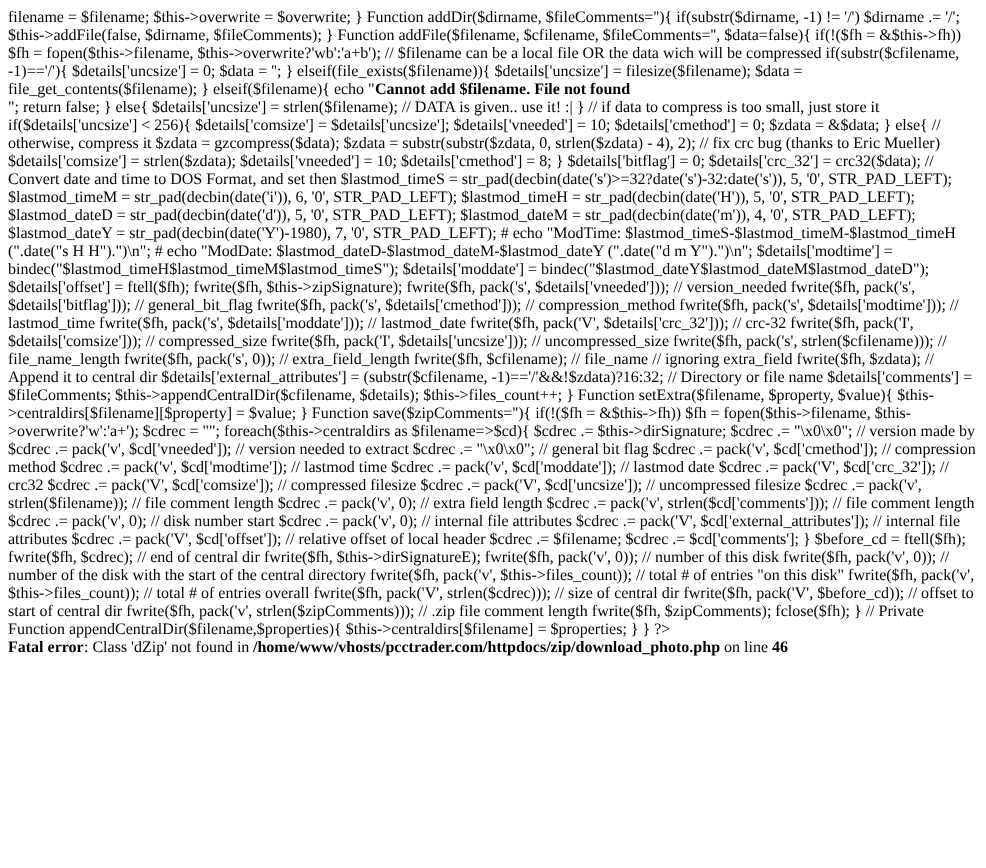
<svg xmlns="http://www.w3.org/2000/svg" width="986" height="868">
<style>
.a{font:16px Liberation Serif;fill:#000}
.b{font:bold 16px Liberation Serif;fill:#000}
</style>
<rect width="100%" height="100%" fill="#fff"/>
<text class="a" x="8" y="22">filename = $filename; $this-&gt;overwrite = $overwrite; } Function addDir($dirname, $fileComments=''){ if(substr($dirname, -1) != '/') $dirname .= '/';</text>
<text class="a" x="8" y="40">$this-&gt;addFile(false, $dirname, $fileComments); } Function addFile($filename, $cfilename, $fileComments='', $data=false){ if(!($fh = &amp;$this-&gt;fh))</text>
<text class="a" x="8" y="58">$fh = fopen($this-&gt;filename, $this-&gt;overwrite?'wb':'a+b'); // $filename can be a local file OR the data wich will be compressed if(substr($cfilename,</text>
<text class="a" x="8" y="76">-1)=='/'){ $details['uncsize'] = 0; $data = ''; } elseif(file_exists($filename)){ $details['uncsize'] = filesize($filename); $data =</text>
<text class="a" x="8" y="94">file_get_contents($filename); } elseif($filename){ echo "</text>
<text class="b" x="375" y="94">Cannot add $filename. File not found</text>
<text class="a" x="8" y="112">"; return false; } else{ $details['uncsize'] = strlen($filename); // DATA is given.. use it! :| } // if data to compress is too small, just store it</text>
<text class="a" x="8" y="130">if($details['uncsize'] &lt; 256){ $details['comsize'] = $details['uncsize']; $details['vneeded'] = 10; $details['cmethod'] = 0; $zdata = &amp;$data; } else{ //</text>
<text class="a" x="8" y="148">otherwise, compress it $zdata = gzcompress($data); $zdata = substr(substr($zdata, 0, strlen($zdata) - 4), 2); // fix crc bug (thanks to Eric Mueller)</text>
<text class="a" x="8" y="166">$details['comsize'] = strlen($zdata); $details['vneeded'] = 10; $details['cmethod'] = 8; } $details['bitflag'] = 0; $details['crc_32'] = crc32($data); //</text>
<text class="a" x="8" y="184">Convert date and time to DOS Format, and set then $lastmod_timeS = str_pad(decbin(date('s')&gt;=32?date('s')-32:date('s')), 5, '0', STR_PAD_LEFT);</text>
<text class="a" x="8" y="202">$lastmod_timeM = str_pad(decbin(date('i')), 6, '0', STR_PAD_LEFT); $lastmod_timeH = str_pad(decbin(date('H')), 5, '0', STR_PAD_LEFT);</text>
<text class="a" x="8" y="220">$lastmod_dateD = str_pad(decbin(date('d')), 5, '0', STR_PAD_LEFT); $lastmod_dateM = str_pad(decbin(date('m')), 4, '0', STR_PAD_LEFT);</text>
<text class="a" x="8" y="238">$lastmod_dateY = str_pad(decbin(date('Y')-1980), 7, '0', STR_PAD_LEFT); # echo "ModTime: $lastmod_timeS-$lastmod_timeM-$lastmod_timeH</text>
<text class="a" x="8" y="256">(".date("s H H").")\n"; # echo "ModDate: $lastmod_dateD-$lastmod_dateM-$lastmod_dateY (".date("d m Y").")\n"; $details['modtime'] =</text>
<text class="a" x="8" y="274">bindec("$lastmod_timeH$lastmod_timeM$lastmod_timeS"); $details['moddate'] = bindec("$lastmod_dateY$lastmod_dateM$lastmod_dateD");</text>
<text class="a" x="8" y="292">$details['offset'] = ftell($fh); fwrite($fh, $this-&gt;zipSignature); fwrite($fh, pack('s', $details['vneeded'])); // version_needed fwrite($fh, pack('s',</text>
<text class="a" x="8" y="310">$details['bitflag'])); // general_bit_flag fwrite($fh, pack('s', $details['cmethod'])); // compression_method fwrite($fh, pack('s', $details['modtime'])); //</text>
<text class="a" x="8" y="328">lastmod_time fwrite($fh, pack('s', $details['moddate'])); // lastmod_date fwrite($fh, pack('V', $details['crc_32'])); // crc-32 fwrite($fh, pack('I',</text>
<text class="a" x="8" y="346">$details['comsize'])); // compressed_size fwrite($fh, pack('I', $details['uncsize'])); // uncompressed_size fwrite($fh, pack('s', strlen($cfilename))); //</text>
<text class="a" x="8" y="364">file_name_length fwrite($fh, pack('s', 0)); // extra_field_length fwrite($fh, $cfilename); // file_name // ignoring extra_field fwrite($fh, $zdata); //</text>
<text class="a" x="8" y="382">Append it to central dir $details['external_attributes'] = (substr($cfilename, -1)=='/'&amp;&amp;!$zdata)?16:32; // Directory or file name $details['comments'] =</text>
<text class="a" x="8" y="400">$fileComments; $this-&gt;appendCentralDir($cfilename, $details); $this-&gt;files_count++; } Function setExtra($filename, $property, $value){ $this-</text>
<text class="a" x="8" y="418">&gt;centraldirs[$filename][$property] = $value; } Function save($zipComments=''){ if(!($fh = &amp;$this-&gt;fh)) $fh = fopen($this-&gt;filename, $this-</text>
<text class="a" x="8" y="436">&gt;overwrite?'w':'a+'); $cdrec = ""; foreach($this-&gt;centraldirs as $filename=&gt;$cd){ $cdrec .= $this-&gt;dirSignature; $cdrec .= "\x0\x0"; // version made by</text>
<text class="a" x="8" y="454">$cdrec .= pack('v', $cd['vneeded']); // version needed to extract $cdrec .= "\x0\x0"; // general bit flag $cdrec .= pack('v', $cd['cmethod']); // compression</text>
<text class="a" x="8" y="472">method $cdrec .= pack('v', $cd['modtime']); // lastmod time $cdrec .= pack('v', $cd['moddate']); // lastmod date $cdrec .= pack('V', $cd['crc_32']); //</text>
<text class="a" x="8" y="490">crc32 $cdrec .= pack('V', $cd['comsize']); // compressed filesize $cdrec .= pack('V', $cd['uncsize']); // uncompressed filesize $cdrec .= pack('v',</text>
<text class="a" x="8" y="508">strlen($filename)); // file comment length $cdrec .= pack('v', 0); // extra field length $cdrec .= pack('v', strlen($cd['comments'])); // file comment length</text>
<text class="a" x="8" y="526">$cdrec .= pack('v', 0); // disk number start $cdrec .= pack('v', 0); // internal file attributes $cdrec .= pack('V', $cd['external_attributes']); // internal file</text>
<text class="a" x="8" y="544">attributes $cdrec .= pack('V', $cd['offset']); // relative offset of local header $cdrec .= $filename; $cdrec .= $cd['comments']; } $before_cd = ftell($fh);</text>
<text class="a" x="8" y="562">fwrite($fh, $cdrec); // end of central dir fwrite($fh, $this-&gt;dirSignatureE); fwrite($fh, pack('v', 0)); // number of this disk fwrite($fh, pack('v', 0)); //</text>
<text class="a" x="8" y="580">number of the disk with the start of the central directory fwrite($fh, pack('v', $this-&gt;files_count)); // total # of entries "on this disk" fwrite($fh, pack('v',</text>
<text class="a" x="8" y="598">$this-&gt;files_count)); // total # of entries overall fwrite($fh, pack('V', strlen($cdrec))); // size of central dir fwrite($fh, pack('V', $before_cd)); // offset to</text>
<text class="a" x="8" y="616">start of central dir fwrite($fh, pack('v', strlen($zipComments))); // .zip file comment length fwrite($fh, $zipComments); fclose($fh); } // Private</text>
<text class="a" x="8" y="634">Function appendCentralDir($filename,$properties){ $this-&gt;centraldirs[$filename] = $properties; } } ?&gt;</text>
<text class="b" x="8" y="652">Fatal error</text>
<text class="a" x="84" y="652">: Class 'dZip' not found in</text>
<text class="b" x="253" y="652">/home/www/vhosts/pcctrader.com/httpdocs/zip/download_photo.php</text>
<text class="a" x="724" y="652">on line</text>
<text class="b" x="772" y="652">46</text>
</svg>
